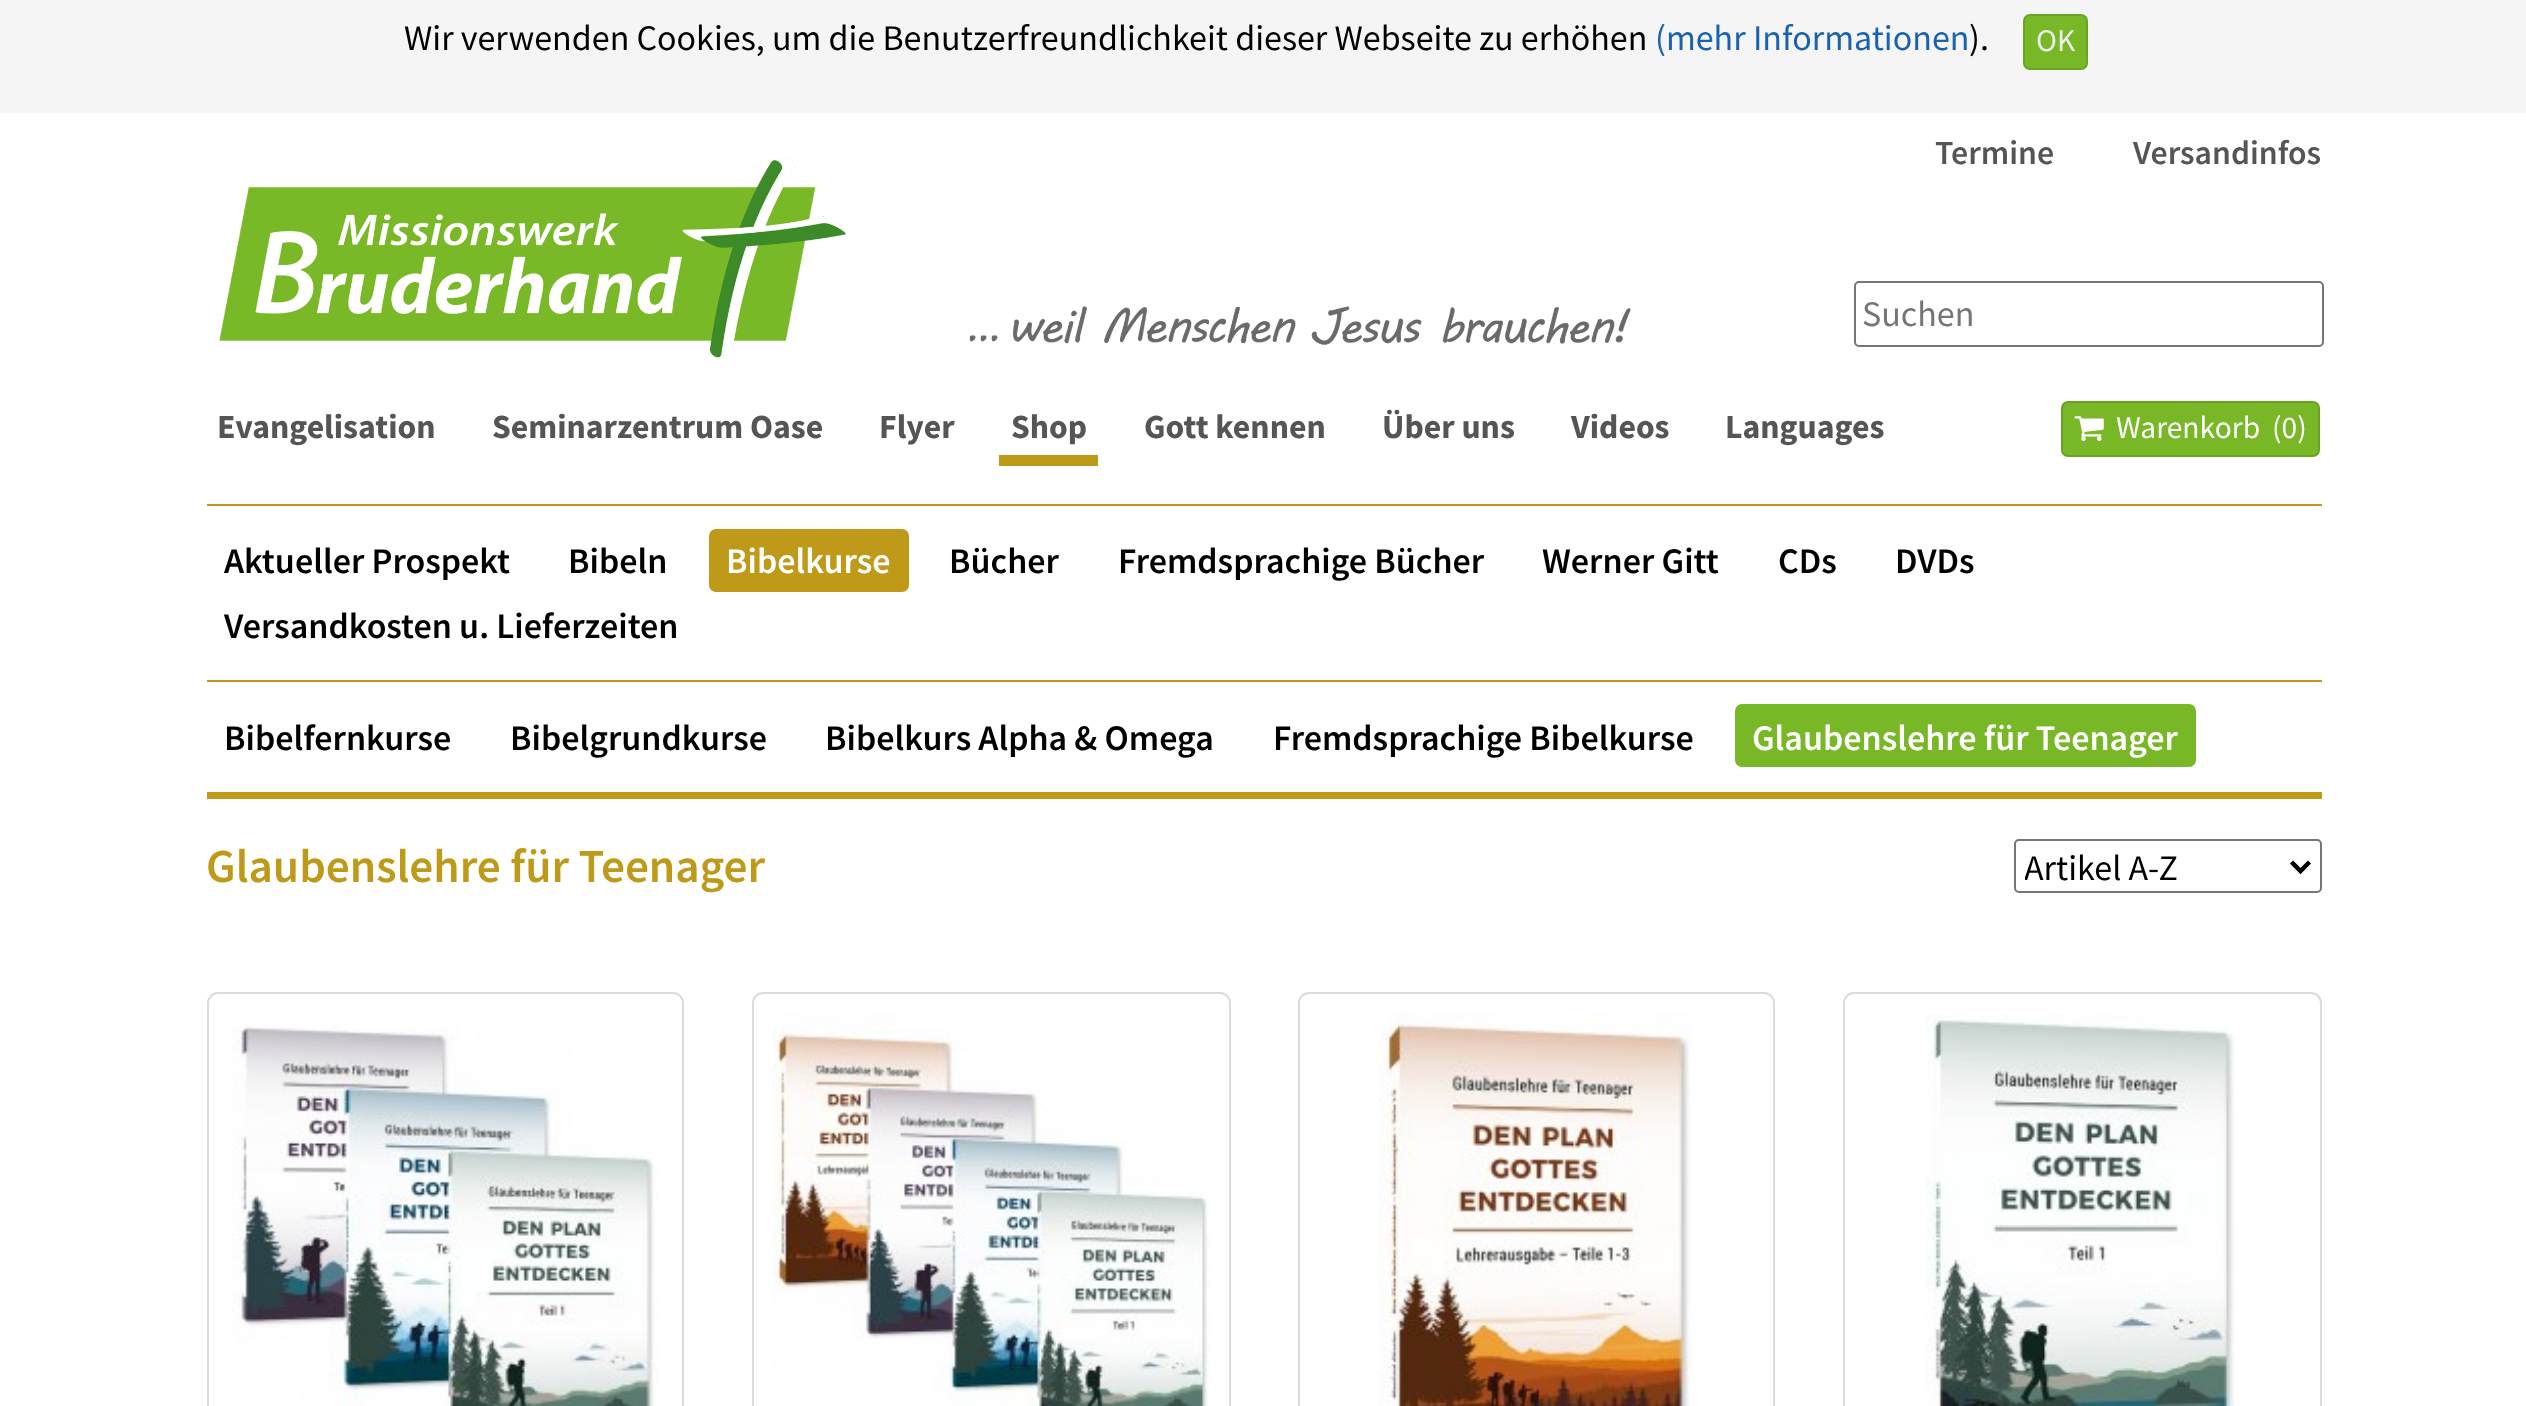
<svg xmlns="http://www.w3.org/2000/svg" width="2526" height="1406">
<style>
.a{font:36px Source Sans Pro;fill:#000}
.b{font:36px Source Sans Pro;fill:#1863af}
.c{font:31.5px Source Sans Pro;fill:#eee}
.d{font:600 33.75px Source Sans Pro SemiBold;fill:#555}
.e{font:36px Source Sans Pro;fill:#757575}
.f{font:bold 33.75px Source Sans Pro;fill:#555}
.g{font:31.5px Source Sans Pro;fill:#fff}
.h{font:600 36px Source Sans Pro SemiBold;fill:#000}
.i{font:600 36px Source Sans Pro SemiBold;fill:#fff}
.j{font:600 47.25px Source Sans Pro SemiBold;fill:#bf9918}
</style>
<defs>
<clipPath id="clip1"><path d="M2025 842h259v49H2025z"/></clipPath>
</defs>
<rect width="100%" height="100%" fill="#fff"/>
<path fill="#f5f5f5" d="M0 0h2526v113H0z"/>
<rect fill="#78b826" stroke="#6aa322" stroke-width="2" x="2024" y="15" width="63" height="54" rx="6"/>
<image href="1.png" x="219" y="158" width="1412" height="200"/>
<rect fill="none" stroke="#767676" stroke-width="2" x="1855" y="282" width="468" height="64" rx="4"/>
<path fill="#bf9918" d="M999 455h99v11H999z"/>
<rect fill="#78b826" stroke="#6aa322" stroke-width="2" x="2062" y="402" width="257" height="54" rx="6"/>
<image href="2.png" x="2074" y="416" width="30" height="25"/>
<path fill="#bf9918" d="M207 504h2115v2H207z"/>
<rect fill="#bf9918" x="709" y="529" width="200" height="63" rx="7"/>
<path fill="#bf9918" d="M207 680h2115v2H207z"/>
<rect fill="#78b826" x="1735" y="704" width="461" height="63" rx="7"/>
<path fill="#bf9918" d="M207 792h2115v7H207z"/>
<rect fill="none" stroke="#767676" stroke-width="2" x="2015" y="840" width="306" height="52" rx="4"/>
<path fill="none" stroke="#000" stroke-width="4.5" d="M2291.5 862l9 9l9-9"/>
<rect fill="none" stroke="#dbdbdb" stroke-width="2" x="208" y="993" width="475" height="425" rx="10"/>
<image href="3.png" x="232" y="1025" width="426" height="381"/>
<rect fill="none" stroke="#dbdbdb" stroke-width="2" x="753" y="993" width="477" height="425" rx="10"/>
<image href="4.png" x="772" y="1013" width="437" height="393"/>
<rect fill="none" stroke="#dbdbdb" stroke-width="2" x="1299" y="993" width="475" height="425" rx="10"/>
<image href="5.png" x="1379" y="1012" width="313" height="394"/>
<rect fill="none" stroke="#dbdbdb" stroke-width="2" x="1844" y="993" width="477" height="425" rx="10"/>
<image href="6.png" x="1926" y="1013" width="309" height="393"/>
<text class="a" x="404" y="50">Wir verwenden Cookies, um die Benutzerfreundlichkeit dieser Webseite zu erhöhen</text>
<text class="b" x="1655" y="50">(mehr Informationen</text>
<text class="a" x="1969" y="50">).</text>
<text class="c" x="2036" y="51">OK</text>
<text class="d" x="1935" y="164">Termine</text>
<text class="d" x="2133" y="164">Versandinfos</text>
<text class="e" x="1862" y="326">Suchen</text>
<text class="f" x="217" y="438">Evangelisation</text>
<text class="f" x="492" y="438">Seminarzentrum Oase</text>
<text class="f" x="879" y="438">Flyer</text>
<text class="f" x="1011" y="438">Shop</text>
<text class="f" x="1144" y="438">Gott kennen</text>
<text class="f" x="1382" y="438">Über uns</text>
<text class="f" x="1571" y="438">Videos</text>
<text class="f" x="1725" y="438">Languages</text>
<text class="g" x="2116" y="438">Warenkorb</text>
<text class="g" x="2272" y="438">(0)</text>
<text class="h" x="224" y="573">Aktueller Prospekt</text>
<text class="h" x="568" y="573">Bibeln</text>
<text class="i" x="726" y="573">Bibelkurse</text>
<text class="h" x="949" y="573">Bücher</text>
<text class="h" x="1118" y="573">Fremdsprachige Bücher</text>
<text class="h" x="1542" y="573">Werner Gitt</text>
<text class="h" x="1778" y="573">CDs</text>
<text class="h" x="1895" y="573">DVDs</text>
<text class="h" x="224" y="638">Versandkosten u. Lieferzeiten</text>
<text class="h" x="224" y="750">Bibelfernkurse</text>
<text class="h" x="510" y="750">Bibelgrundkurse</text>
<text class="h" x="825" y="750">Bibelkurs Alpha &amp; Omega</text>
<text class="h" x="1273" y="750">Fremdsprachige Bibelkurse</text>
<text class="i" x="1752" y="750">Glaubenslehre für Teenager</text>
<text class="j" x="206" y="882">Glaubenslehre für Teenager</text>
<g clip-path="url(#clip1)">
<text class="a" x="2024" y="880">Artikel A-Z</text>
</g>
</svg>
